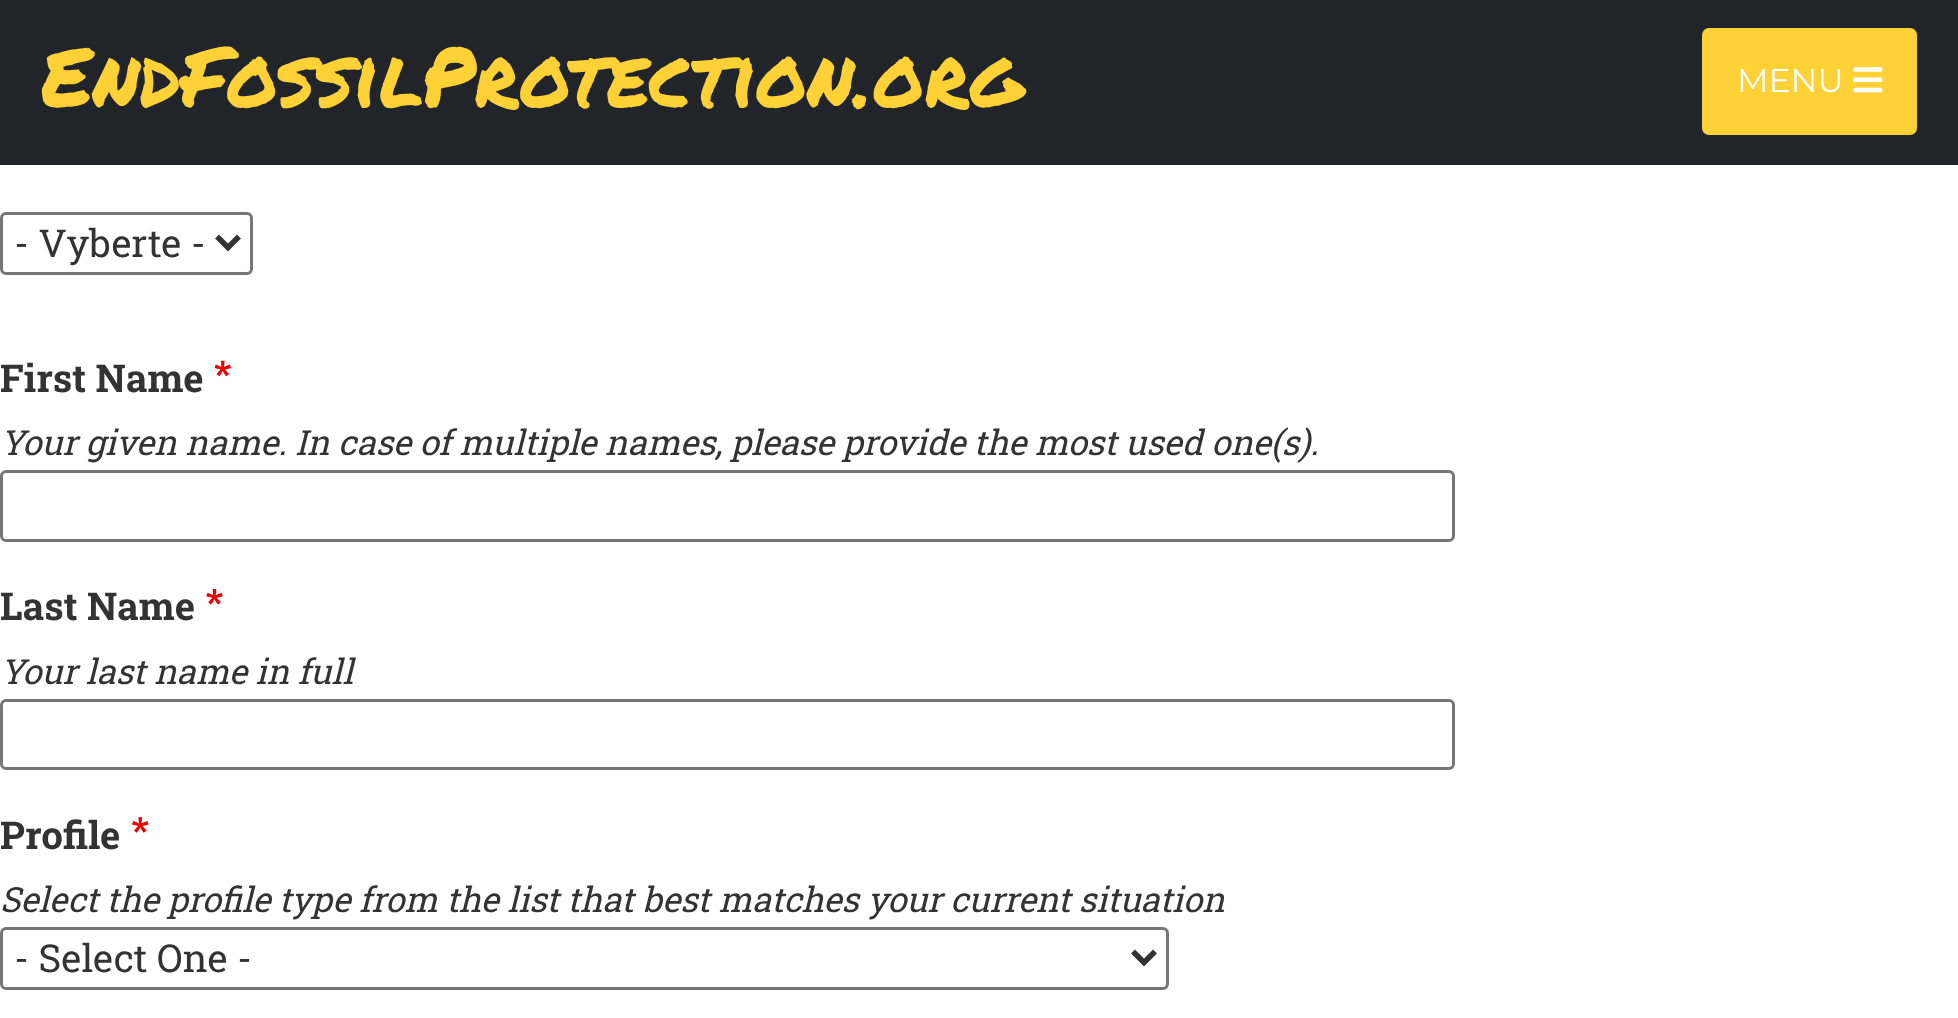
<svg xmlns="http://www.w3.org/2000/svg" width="1958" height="1018">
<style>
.a{font:82.5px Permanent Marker;fill:#fed136}
.b{font:33px Montserrat;fill:#fff}
.c{font:38.5px Roboto Slab;fill:#333}
.d{font:bold 38.5px Roboto Slab;fill:#333}
.e{font:italic 34.65px Roboto Slab;fill:#333}
</style>
<rect width="100%" height="100%" fill="#fff"/>
<path fill="#212529" d="M0 0h1958v165H0z"/>
<rect fill="#fed136" x="1702" y="28" width="215" height="107" rx="7"/>
<image href="1.png" x="1853" y="67" width="30" height="26"/>
<rect fill="none" stroke="#767676" stroke-width="3" x="1.5" y="213.5" width="250" height="60" rx="4.5"/>
<path fill="none" stroke="#333" stroke-width="5.5" d="M217 236.5l11 11l11-11"/>
<image href="2.png" x="215" y="360" width="16" height="17"/>
<rect fill="none" stroke="#767676" stroke-width="3" x="1.5" y="471.5" width="1452" height="69" rx="4.5"/>
<image href="3.png" x="206" y="589" width="17" height="16"/>
<rect fill="none" stroke="#767676" stroke-width="3" x="1.5" y="700.5" width="1452" height="68" rx="4.5"/>
<image href="4.png" x="132" y="817" width="17" height="16"/>
<rect fill="none" stroke="#767676" stroke-width="3" x="1.5" y="928.5" width="1166" height="60" rx="4.5"/>
<path fill="none" stroke="#333" stroke-width="5.5" d="M1133 951.5l11 11l11-11"/>
<text class="a" x="41" y="107">EndFossilProtection.org</text>
<text class="b" x="1737" y="92">MENU</text>
<text class="c" x="14" y="257">- Vyberte -</text>
<text class="d" x="0" y="392">First Name</text>
<text class="e" x="0" y="455">Your given name. In case of multiple names, please provide the most used one(s).</text>
<text class="d" x="0" y="620">Last Name</text>
<text class="e" x="0" y="684">Your last name in full</text>
<text class="d" x="0" y="849">Profile</text>
<text class="e" x="0" y="912">Select the profile type from the list that best matches your current situation</text>
<text class="c" x="14" y="972">- Select One -</text>
</svg>
